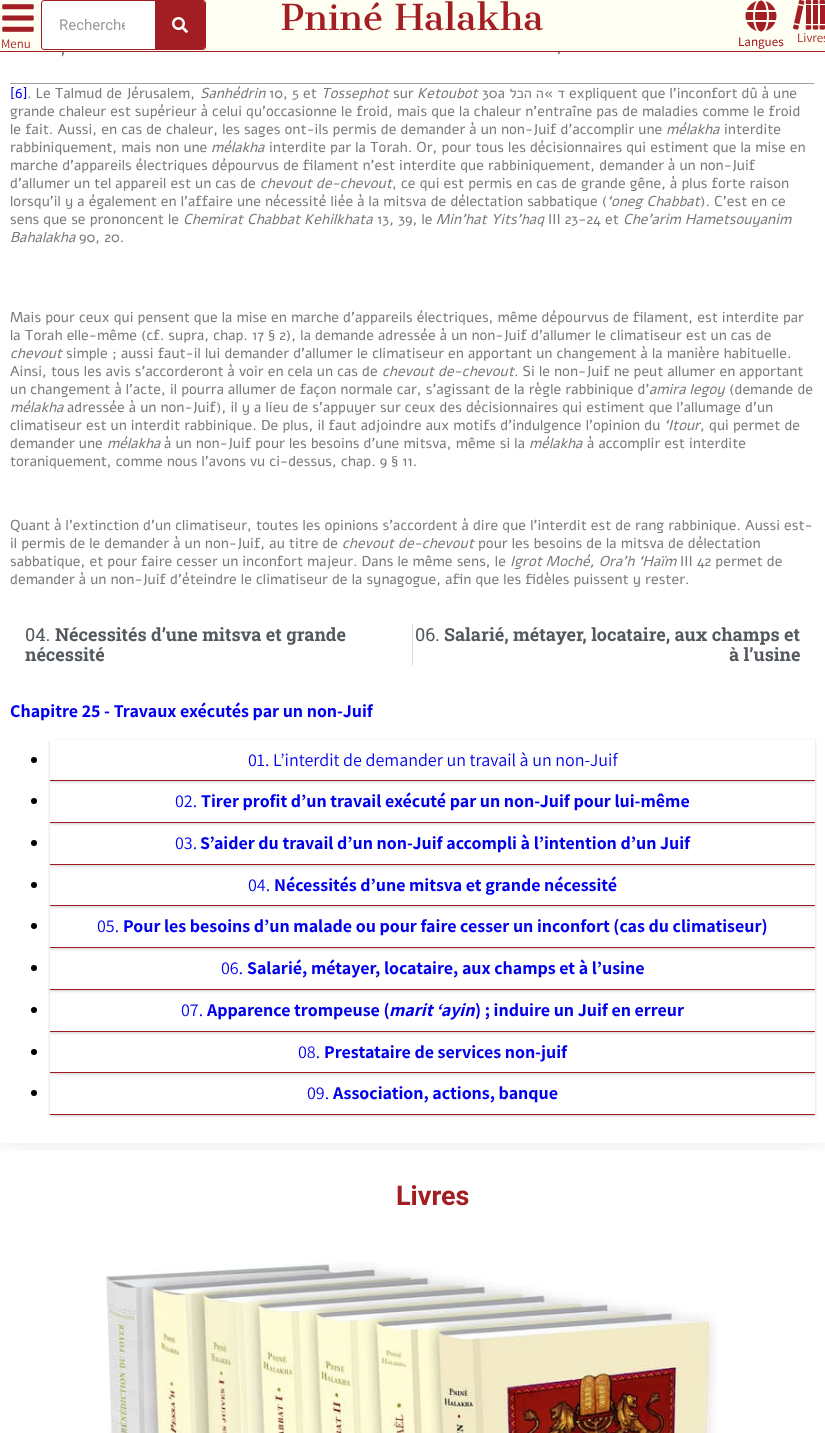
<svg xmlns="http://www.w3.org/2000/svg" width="825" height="1433">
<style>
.a{font:15px Roboto;fill:#989b9f}
.b{font:35px Cantata One;fill:#a31e23}
.c{font:13px Assistant;fill:#a31e23}
.d{font:500 13px Assistant;fill:#a31e23}
.e{font:18px Alef;fill:#7a7a7a}
.f{font:14.4px Alef;fill:#00e}
.g{font:14.4px Alef;fill:#7a7a7a}
.h{font:italic 14.4px Alef;fill:#7a7a7a}
.i{font:14.4px Alef;direction:rtl;fill:#7a7a7a}
.j{font:18px Roboto Slab;fill:#54595f}
.k{font:bold 18px Roboto Slab;fill:#54595f}
.l{font:bold 18px Assistant;fill:#00e}
.m{font:18px Assistant;fill:#00e}
.n{font:italic bold 18px Assistant;fill:#00e}
.o{font:bold 27px Roboto;fill:#a31e23}
</style>
<defs>
<clipPath id="clip1"><path d="M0 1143h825v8H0z"/></clipPath>
<clipPath id="clip2"><path d="M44 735h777v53h-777zm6 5h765v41h-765z" clip-rule="evenodd"/></clipPath>
<clipPath id="clip3"><path d="M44 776h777v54h-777zm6 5h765v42h-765z" clip-rule="evenodd"/></clipPath>
<clipPath id="clip4"><path d="M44 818h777v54h-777zm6 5h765v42h-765z" clip-rule="evenodd"/></clipPath>
<clipPath id="clip5"><path d="M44 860h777v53h-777zm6 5h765v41h-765z" clip-rule="evenodd"/></clipPath>
<clipPath id="clip6"><path d="M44 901h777v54h-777zm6 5h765v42h-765z" clip-rule="evenodd"/></clipPath>
<clipPath id="clip7"><path d="M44 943h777v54h-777zm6 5h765v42h-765z" clip-rule="evenodd"/></clipPath>
<clipPath id="clip8"><path d="M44 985h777v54h-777zm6 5h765v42h-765z" clip-rule="evenodd"/></clipPath>
<clipPath id="clip9"><path d="M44 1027h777v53h-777zm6 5h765v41h-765z" clip-rule="evenodd"/></clipPath>
<clipPath id="clip10"><path d="M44 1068h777v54h-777zm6 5h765v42h-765z" clip-rule="evenodd"/></clipPath>
<clipPath id="clip11"><path d="M59 16h66v18H59z"/></clipPath>
</defs>
<rect width="100%" height="100%" fill="#fff"/>
<g clip-path="url(#clip1)">
<path fill="#00000017" filter="blur(10px)" d="M0 -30h825v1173H0z"/>
</g>
<path fill="#fffef2" d="M0 0h825v51H0z"/>
<path fill="#a31e23" d="M0 51h825v1H0z"/>
<rect fill="#fff" stroke="#a31e23" x="41.5" y="0.5" width="164" height="49" rx="2.5"/>
<path fill="#a31e23" d="M155 1h48c1 0 2 1 2 2v44c0 1-1 2-2 2h-48z"/>
<image href="1.png" x="172" y="17" width="16" height="16"/>
<image href="2.png" x="2" y="4" width="32" height="28"/>
<image href="3.png" x="745" y="0" width="32" height="32"/>
<image href="4.png" x="793" y="0" width="32" height="30"/>
<path fill="#9f9f9f" d="M10 83h805v1H10z"/>
<path fill="#eee" d="M814 83h1v1H814z"/>
<path fill="#d5d8dc" d="M412 624h1v41H412z"/>
<circle fill="#000" cx="34" cy="760" r="3"/>
<g clip-path="url(#clip2)">
<path fill="#00000033" filter="blur(1.5px)" d="M50 741h765v41H50z"/>
</g>
<path fill="#a31e23" d="M50 780h765v1H50z"/>
<circle fill="#000" cx="34" cy="801" r="3"/>
<g clip-path="url(#clip3)">
<path fill="#00000033" filter="blur(1.5px)" d="M50 782h765v42H50z"/>
</g>
<path fill="#a31e23" d="M50 822h765v1H50z"/>
<circle fill="#000" cx="34" cy="843" r="3"/>
<g clip-path="url(#clip4)">
<path fill="#00000033" filter="blur(1.5px)" d="M50 824h765v42H50z"/>
</g>
<path fill="#a31e23" d="M50 864h765v1H50z"/>
<circle fill="#000" cx="34" cy="885" r="3"/>
<g clip-path="url(#clip5)">
<path fill="#00000033" filter="blur(1.5px)" d="M50 866h765v41H50z"/>
</g>
<path fill="#a31e23" d="M50 905h765v1H50z"/>
<circle fill="#000" cx="34" cy="926" r="3"/>
<g clip-path="url(#clip6)">
<path fill="#00000033" filter="blur(1.5px)" d="M50 907h765v42H50z"/>
</g>
<path fill="#a31e23" d="M50 947h765v1H50z"/>
<circle fill="#000" cx="34" cy="968" r="3"/>
<g clip-path="url(#clip7)">
<path fill="#00000033" filter="blur(1.5px)" d="M50 949h765v42H50z"/>
</g>
<path fill="#a31e23" d="M50 989h765v1H50z"/>
<circle fill="#000" cx="34" cy="1010" r="3"/>
<g clip-path="url(#clip8)">
<path fill="#00000033" filter="blur(1.5px)" d="M50 991h765v42H50z"/>
</g>
<path fill="#a31e23" d="M50 1031h765v1H50z"/>
<circle fill="#000" cx="34" cy="1052" r="3"/>
<g clip-path="url(#clip9)">
<path fill="#00000033" filter="blur(1.5px)" d="M50 1033h765v41H50z"/>
</g>
<path fill="#a31e23" d="M50 1072h765v1H50z"/>
<circle fill="#000" cx="34" cy="1093" r="3"/>
<g clip-path="url(#clip10)">
<path fill="#00000033" filter="blur(1.5px)" d="M50 1074h765v42H50z"/>
</g>
<path fill="#a31e23" d="M50 1114h765v1H50z"/>
<image href="5.png" x="105" y="1262" width="612" height="171"/>
<g clip-path="url(#clip11)">
<text class="a" x="59" y="30">Recherche</text>
</g>
<text class="b" x="281" y="30">Pniné Halakha</text>
<text class="c" x="1" y="48">Menu</text>
<text class="d" x="738" y="46">Langues</text>
<text class="c" x="797" y="42">Livres</text>
<text class="e" x="60" y="54">,</text>
<text class="e" x="556" y="54">.</text>
<text class="f" x="10" y="98">[6]</text>
<text class="g" x="27" y="98">. Le Talmud de Jérusalem,</text>
<text class="h" x="200" y="98">Sanhédrin</text>
<text class="g" x="269" y="98">10, 5 et</text>
<text class="h" x="321" y="98">Tossephot</text>
<text class="g" x="393" y="98">sur</text>
<text class="h" x="417" y="98">Ketoubot</text>
<text class="g" x="482" y="98">30a</text>
<text class="i" x="565" y="98">ד »ה הכל</text>
<text class="g" x="569" y="98">expliquent que l’inconfort dû à une</text>
<text class="g" x="10" y="116">grande chaleur est supérieur à celui qu’occasionne le froid, mais que la chaleur n’entraîne pas de maladies comme le froid</text>
<text class="g" x="10" y="134">le fait. Aussi, en cas de chaleur, les sages ont-ils permis de demander à un non-Juif d’accomplir une</text>
<text class="h" x="666" y="134">mélakha</text>
<text class="g" x="724" y="134">interdite</text>
<text class="g" x="10" y="152">rabbiniquement, mais non une</text>
<text class="h" x="211" y="152">mélakha</text>
<text class="g" x="269" y="152">interdite par la Torah. Or, pour tous les décisionnaires qui estiment que la mise en</text>
<text class="g" x="10" y="170">marche d’appareils électriques dépourvus de filament n’est interdite que rabbiniquement, demander à un non-Juif</text>
<text class="g" x="10" y="188">d’allumer un tel appareil est un cas de</text>
<text class="h" x="260" y="188">chevout de-chevout</text>
<text class="g" x="392" y="188">, ce qui est permis en cas de grande gêne, à plus forte raison</text>
<text class="g" x="10" y="206">lorsqu’il y a également en l’affaire une nécessité liée à la mitsva de délectation sabbatique (</text>
<text class="h" x="607" y="206">‘oneg Chabbat</text>
<text class="g" x="700" y="206">). C’est en ce</text>
<text class="g" x="10" y="224">sens que se prononcent le</text>
<text class="h" x="183" y="224">Chemirat Chabbat Kehilkhata</text>
<text class="g" x="377" y="224">13, 39, le</text>
<text class="h" x="436" y="224">Min’hat Yits’haq</text>
<text class="g" x="548" y="224">III 23-24 et</text>
<text class="h" x="623" y="224">Che’arim Hametsouyanim</text>
<text class="h" x="10" y="242">Bahalakha</text>
<text class="g" x="79" y="242">90, 20.</text>
<text class="g" x="10" y="322">Mais pour ceux qui pensent que la mise en marche d’appareils électriques, même dépourvus de filament, est interdite par</text>
<text class="g" x="10" y="340">la Torah elle-même (cf. supra, chap. 17 § 2), la demande adressée à un non-Juif d’allumer le climatiseur est un cas de</text>
<text class="h" x="10" y="358">chevout</text>
<text class="g" x="66" y="358">simple ; aussi faut-il lui demander d’allumer le climatiseur en apportant un changement à la manière habituelle.</text>
<text class="g" x="10" y="376">Ainsi, tous les avis s’accorderont à voir en cela un cas de</text>
<text class="h" x="382" y="376">chevout de-chevout</text>
<text class="g" x="514" y="376">. Si le non-Juif ne peut allumer en apportant</text>
<text class="g" x="10" y="394">un changement à l’acte, il pourra allumer de façon normale car, s’agissant de la règle rabbinique d’</text>
<text class="h" x="649" y="394">amira legoy</text>
<text class="g" x="729" y="394">(demande de</text>
<text class="h" x="10" y="412">mélakha</text>
<text class="g" x="67" y="412">adressée à un non-Juif), il y a lieu de s’appuyer sur ceux des décisionnaires qui estiment que l’allumage d’un</text>
<text class="g" x="10" y="430">climatiseur est un interdit rabbinique. De plus, il faut adjoindre aux motifs d’indulgence l’opinion du</text>
<text class="h" x="664" y="430">‘Itour</text>
<text class="g" x="700" y="430">, qui permet de</text>
<text class="g" x="10" y="448">demander une</text>
<text class="h" x="107" y="448">mélakha</text>
<text class="g" x="164" y="448">à un non-Juif pour les besoins d’une mitsva, même si la</text>
<text class="h" x="529" y="448">mélakha</text>
<text class="g" x="587" y="448">à accomplir est interdite</text>
<text class="g" x="10" y="466">toraniquement, comme nous l’avons vu ci-dessus, chap. 9 § 11.</text>
<text class="g" x="10" y="530">Quant à l’extinction d’un climatiseur, toutes les opinions s’accordent à dire que l’interdit est de rang rabbinique. Aussi est-</text>
<text class="g" x="10" y="548">il permis de le demander à un non-Juif, au titre de</text>
<text class="h" x="342" y="548">chevout de-chevout</text>
<text class="g" x="478" y="548">pour les besoins de la mitsva de délectation</text>
<text class="g" x="10" y="566">sabbatique, et pour faire cesser un inconfort majeur. Dans le même sens, le</text>
<text class="h" x="510" y="566">Igrot Moché, Ora’h ‘Haïm</text>
<text class="g" x="680" y="566">III 42 permet de</text>
<text class="g" x="10" y="584">demander à un non-Juif d’éteindre le climatiseur de la synagogue, afin que les fidèles puissent y rester.</text>
<text class="j" x="25" y="641">04.</text>
<text class="k" x="55" y="641">Nécessités d’une mitsva et grande</text>
<text class="k" x="25" y="661">nécessité</text>
<text class="j" x="415" y="641">06.</text>
<text class="k" x="444" y="641">Salarié, métayer, locataire, aux champs et</text>
<text class="k" x="729" y="661">à l’usine</text>
<text class="l" x="10" y="717">Chapitre 25 - Travaux exécutés par un non-Juif</text>
<text class="m" x="248" y="766">01. L’interdit de demander un travail à un non-Juif</text>
<text class="m" x="175" y="807">02.</text>
<text class="l" x="201" y="807">Tirer profit d’un travail exécuté par un non-Juif pour lui-même</text>
<text class="m" x="175" y="849">03.</text>
<text class="l" x="200" y="849">S’aider du travail d’un non-Juif accompli à l’intention d’un Juif</text>
<text class="m" x="248" y="891">04.</text>
<text class="l" x="274" y="891">Nécessités d’une mitsva et grande nécessité</text>
<text class="m" x="97" y="932">05.</text>
<text class="l" x="123" y="932">Pour les besoins d’un malade ou pour faire cesser un inconfort (cas du climatiseur)</text>
<text class="m" x="221" y="974">06.</text>
<text class="l" x="247" y="974">Salarié, métayer, locataire, aux champs et à l’usine</text>
<text class="m" x="181" y="1016">07.</text>
<text class="l" x="207" y="1016">Apparence trompeuse (</text>
<text class="n" x="389" y="1016">marit ‘ayin</text>
<text class="l" x="475" y="1016">) ; induire un Juif en erreur</text>
<text class="m" x="298" y="1058">08.</text>
<text class="l" x="324" y="1058">Prestataire de services non-juif</text>
<text class="m" x="307" y="1099">09.</text>
<text class="l" x="333" y="1099">Association, actions, banque</text>
<text class="o" x="396" y="1205">Livres</text>
</svg>
